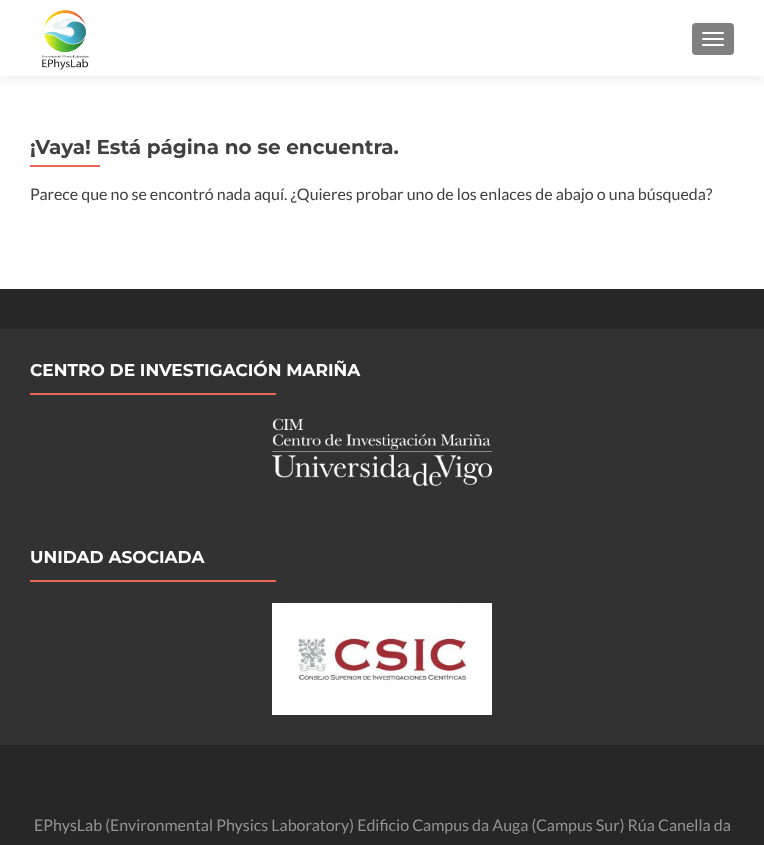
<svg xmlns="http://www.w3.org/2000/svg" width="764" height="845">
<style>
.a{font:bold 20px Montserrat;fill:#404040}
.b{font:16px Lato;fill:#404040}
.c{font:bold 17px Montserrat;fill:#fff}
.d{font:16px Lato;fill:#939393}
</style>
<defs>
<clipPath id="clip1"><path d="M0 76h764v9H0z"/></clipPath>
</defs>
<rect width="100%" height="100%" fill="#fff"/>
<g clip-path="url(#clip1)">
<path fill="#32323214" filter="blur(5.5px)" d="M0 5h764v76H0z"/>
</g>
<image href="1.png" x="42" y="10" width="47" height="60"/>
<rect fill="#808080" x="692" y="23" width="42" height="32" rx="4"/>
<rect fill="#fff" x="702" y="32" width="22" height="2" rx="1"/>
<rect fill="#fff" x="702" y="38" width="22" height="2" rx="1"/>
<rect fill="#fff" x="702" y="44" width="22" height="2" rx="1"/>
<path fill="#e96656" d="M30 165h70v2H30z"/>
<path fill="#f2f2f2" d="M15 288h1v1H15z"/>
<path fill="#272727" d="M0 289h764v556H0z"/>
<path fill="#323232" d="M0 329h764v416H0z"/>
<path fill="#e96656" d="M30 393h246v2H30z"/>
<image href="2.png" x="272" y="418" width="220" height="68"/>
<path fill="#e96656" d="M30 580h246v2H30z"/>
<image href="3.png" x="272" y="603" width="220" height="112"/>
<text class="a" x="30" y="154">¡Vaya! Está página no se encuentra.</text>
<text class="b" x="30" y="200">Parece que no se encontró nada aquí. ¿Quieres probar uno de los enlaces de abajo o una búsqueda?</text>
<text class="c" x="30" y="376">CENTRO DE INVESTIGACIÓN MARIÑA</text>
<text class="c" x="30" y="563">UNIDAD ASOCIADA</text>
<text class="d" x="34" y="831">EPhysLab (Environmental Physics Laboratory) Edificio Campus da Auga (Campus Sur) Rúa Canella da</text>
</svg>
